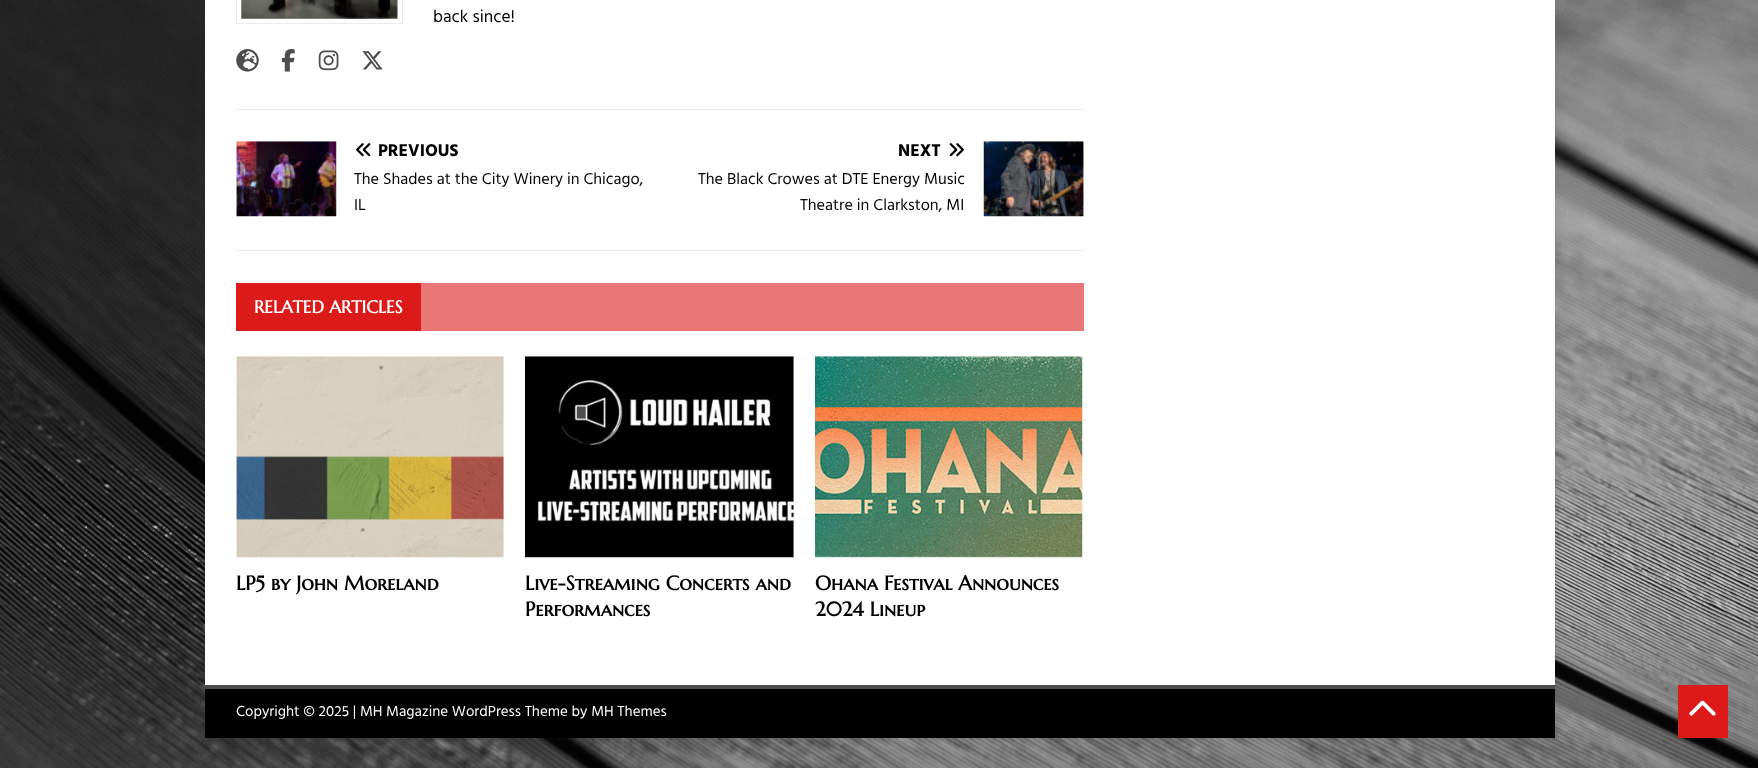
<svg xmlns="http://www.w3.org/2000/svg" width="1758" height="768">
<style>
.a{font:17.5px Hind;fill:#000}
.b{font:bold 17.5px Hind;fill:#000}
.c{font:16.25px Hind;fill:#000}
.d{font:bold 17.5px Marcellus SC;fill:#fff}
.e{font:bold 20px Marcellus SC;fill:#000}
.f{font:15px Hind;fill:#fff}
</style>
<rect width="100%" height="100%" fill="#fff"/>
<image href="1.png" x="0" y="0" width="1758" height="768"/>
<path fill="#3232322b" filter="blur(6px)" d="M205 -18h1350v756H205z"/>
<path fill="#fff" d="M205 0h1350v685H205z"/>
<path fill="#ebebeb" d="M236 109h848v1H236z"/>
<path fill="none" stroke="#ebebeb" d="M236.5 -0.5h166v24H236.5z"/>
<image href="2.png" x="241" y="0" width="157" height="19"/>
<image href="3.png" x="236" y="49" width="23" height="23"/>
<image href="4.png" x="281" y="49" width="14" height="23"/>
<image href="5.png" x="318" y="50" width="21" height="21"/>
<image href="6.png" x="362" y="51" width="21" height="19"/>
<path fill="#ebebeb" d="M236 250h848v1H236z"/>
<image href="7.png" x="236" y="141" width="101" height="76"/>
<image href="8.png" x="356" y="143" width="15" height="14"/>
<image href="9.png" x="949" y="143" width="15" height="14"/>
<image href="10.png" x="983" y="141" width="101" height="76"/>
<path fill="#eb7676" d="M421 283h663v48H421z"/>
<path fill="#dd1a1a" d="M236 283h185v48H236z"/>
<image href="11.png" x="236" y="356" width="268" height="202"/>
<image href="12.png" x="525" y="356" width="269" height="202"/>
<image href="13.png" x="815" y="356" width="268" height="202"/>
<path fill="#000" d="M205 689h1350v49H205z"/>
<path fill="#4d4d4d" d="M205 685h1350v4H205z"/>
<path fill="#dd1a1a" d="M1678 685h50v53H1678z"/>
<image href="14.png" x="1689" y="700" width="27" height="16"/>
<text class="a" x="433" y="22">back since!</text>
<text class="b" x="378" y="156">PREVIOUS</text>
<text class="c" x="354" y="184">The Shades at the City Winery in Chicago,</text>
<text class="c" x="354" y="210">IL</text>
<text class="b" x="898" y="156">NEXT</text>
<text class="c" x="698" y="184">The Black Crowes at DTE Energy Music</text>
<text class="c" x="800" y="210">Theatre in Clarkston, MI</text>
<text class="d" x="254" y="313">RELATED ARTICLES</text>
<text class="e" x="236" y="590">LP5 by John Moreland</text>
<text class="e" x="525" y="590">Live-Streaming Concerts and</text>
<text class="e" x="525" y="616">Performances</text>
<text class="e" x="815" y="590">Ohana Festival Announces</text>
<text class="e" x="815" y="616">2024 Lineup</text>
<text class="f" x="236" y="716">Copyright © 2025 | MH Magazine WordPress Theme by MH Themes</text>
</svg>
